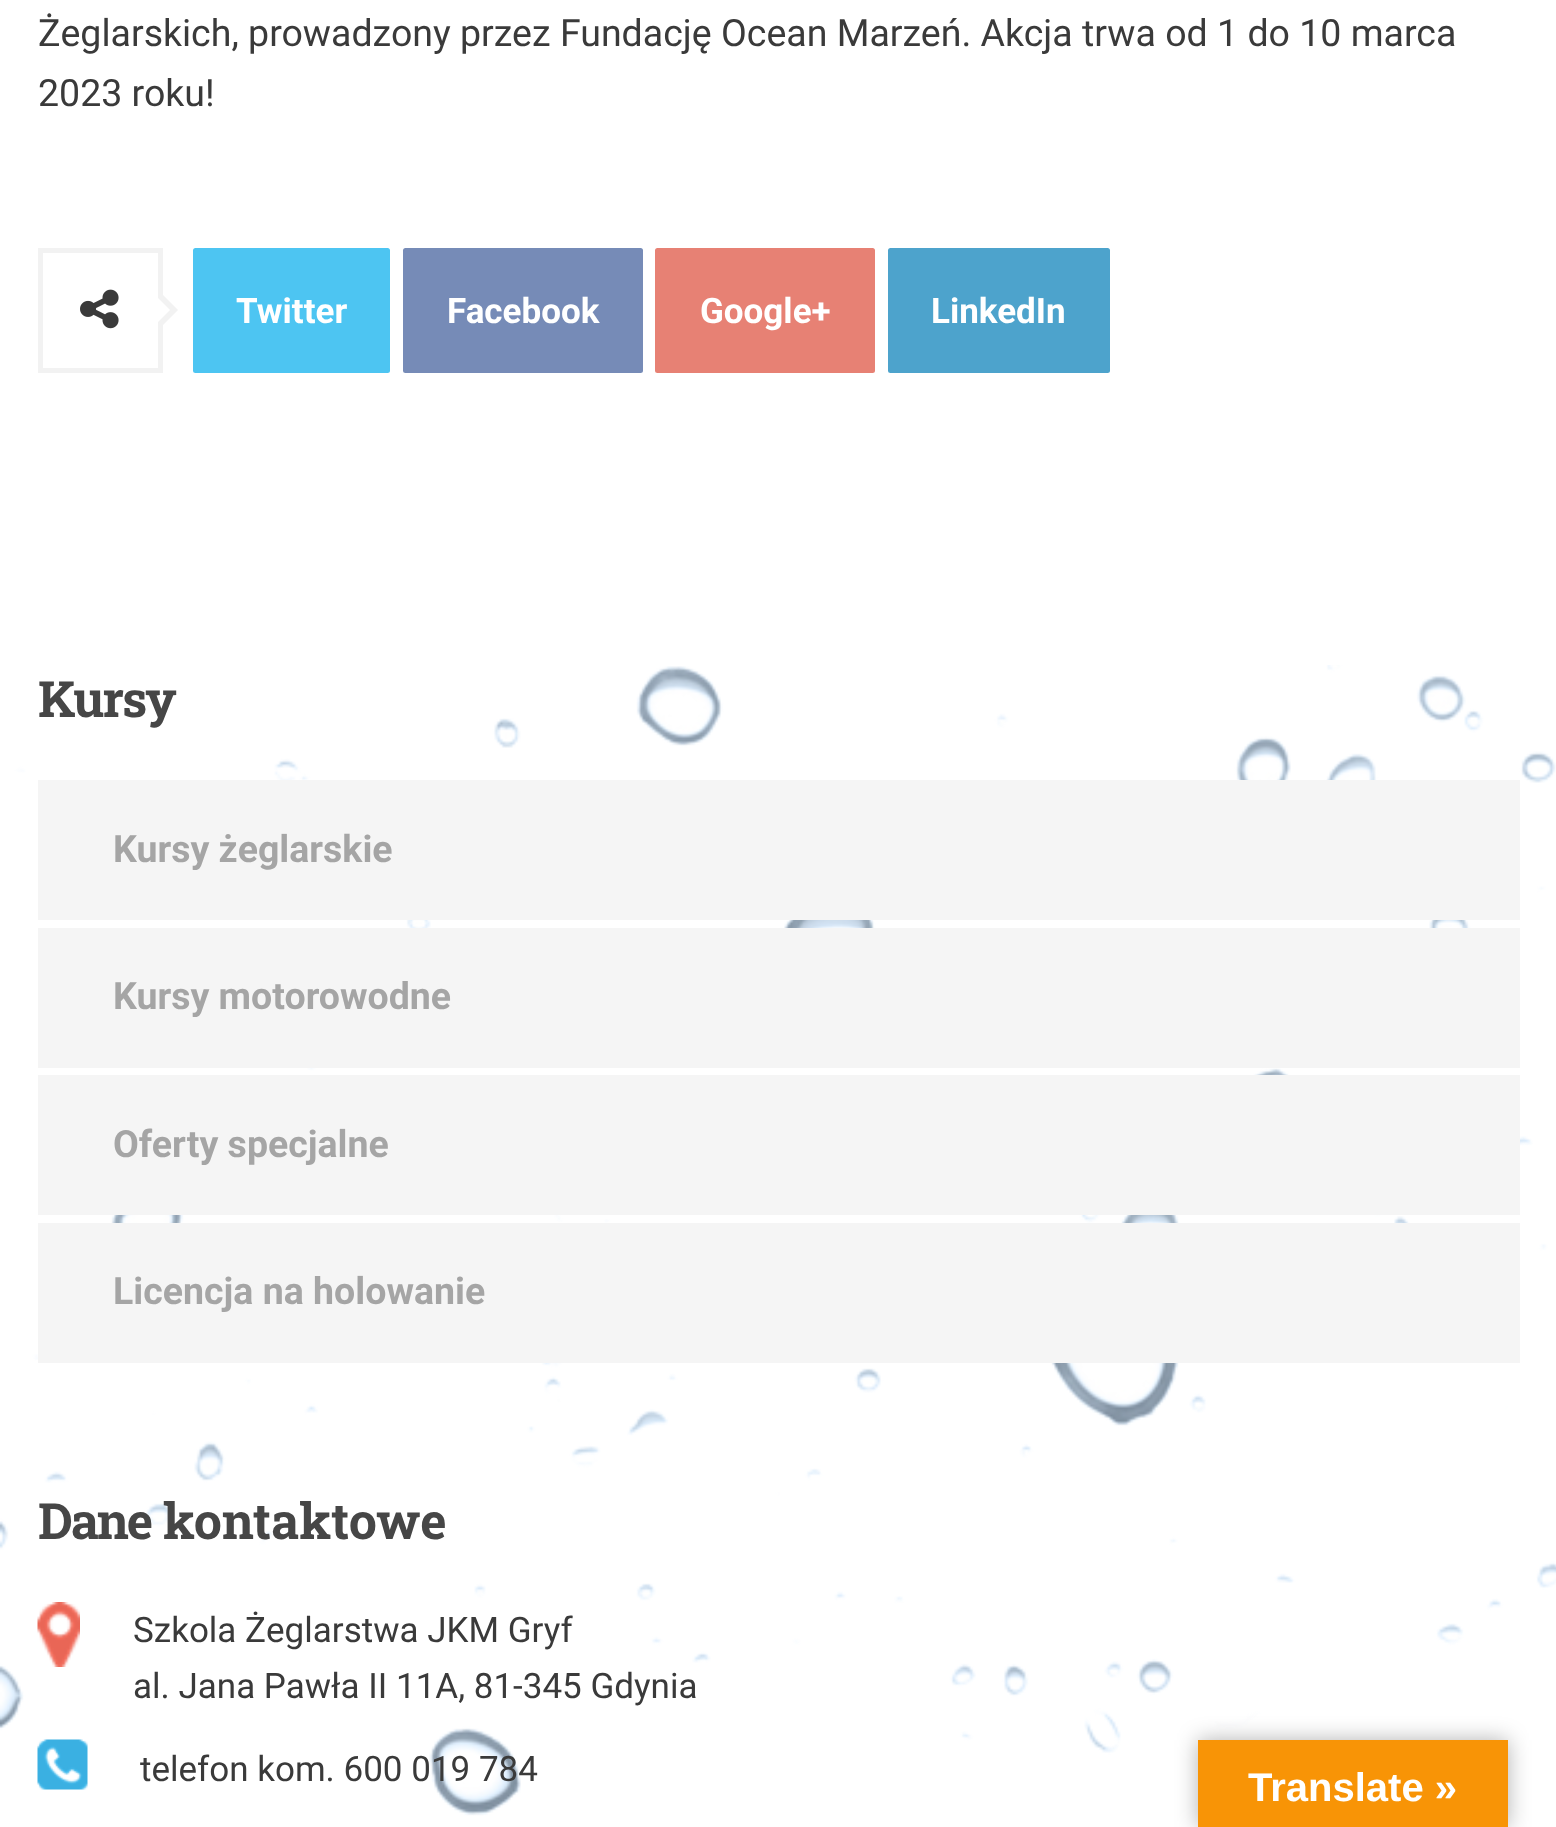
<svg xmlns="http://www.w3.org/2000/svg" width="1556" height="1827">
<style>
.a{font:37.5px Roboto;fill:#3a3a3a}
.b{font:bold 35px Roboto;fill:#fff}
.c{font:bold 50px Roboto Slab;letter-spacing:-2px;fill:#464646}
.d{font:bold 37.5px Roboto;fill:#a5a5a5}
.e{font:bold 50px Roboto Slab;fill:#464646}
.f{font:35px Roboto;fill:#3a3a3a}
.g{font:bold 40px Liberation Sans;fill:#fff}
</style>
<rect width="100%" height="100%" fill="#fff"/>
<image href="1.png" x="0" y="665" width="1556" height="1151"/>
<path fill="none" stroke="#f2f2f2" stroke-width="5" d="M40.5 250.5h120v120H40.5z"/>
<image href="2.png" x="80" y="289" width="39" height="40"/>
<path fill="#f2f2f2" d="M158 330v-40l20 20z"/>
<path fill="#fff" d="M157.5 322.5v-25l12.5 12.5z"/>
<rect fill="#4dc5f2" x="193" y="248" width="197" height="125" rx="2.5"/>
<rect fill="#768bb7" x="403" y="248" width="240" height="125" rx="2.5"/>
<rect fill="#e78174" x="655" y="248" width="220" height="125" rx="2.5"/>
<rect fill="#4da3cc" x="888" y="248" width="222" height="125" rx="2.5"/>
<path fill="#f5f5f5" d="M38 780h1482v140H38z"/>
<path fill="#f5f5f5" d="M38 928h1482v140H38z"/>
<path fill="#f5f5f5" d="M38 1075h1482v140H38z"/>
<path fill="#f5f5f5" d="M38 1223h1482v140H38z"/>
<image href="3.png" x="37" y="1602" width="43" height="65"/>
<image href="4.png" x="37" y="1739" width="51" height="51"/>
<path fill="#0000004d" filter="blur(11px)" d="M1198 1740h310v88H1198z"/>
<path fill="#f89406" d="M1198 1740h310v87H1198z"/>
<text class="a" x="38" y="46">Żeglarskich, prowadzony przez Fundację Ocean Marzeń. Akcja trwa od 1 do 10 marca</text>
<text class="a" x="38" y="106">2023 roku!</text>
<text class="b" x="236" y="323">Twitter</text>
<text class="b" x="447" y="323">Facebook</text>
<text class="b" x="700" y="323">Google+</text>
<text class="b" x="931" y="323">LinkedIn</text>
<text class="c" x="38" y="717">Kursy</text>
<text class="d" x="113" y="862">Kursy żeglarskie</text>
<text class="d" x="113" y="1009">Kursy motorowodne</text>
<text class="d" x="113" y="1157">Oferty specjalne</text>
<text class="d" x="113" y="1304">Licencja na holowanie</text>
<text class="c" x="38" y="1539">Dane</text>
<text class="e" x="163" y="1539">kontaktowe</text>
<text class="f" x="133" y="1642">Szkola Żeglarstwa JKM Gryf</text>
<text class="f" x="133" y="1698">al. Jana Pawła II 11A, 81-345 Gdynia</text>
<text class="f" x="140" y="1781">telefon kom. 600 019 784</text>
<text class="g" x="1248" y="1801">Translate »</text>
</svg>
